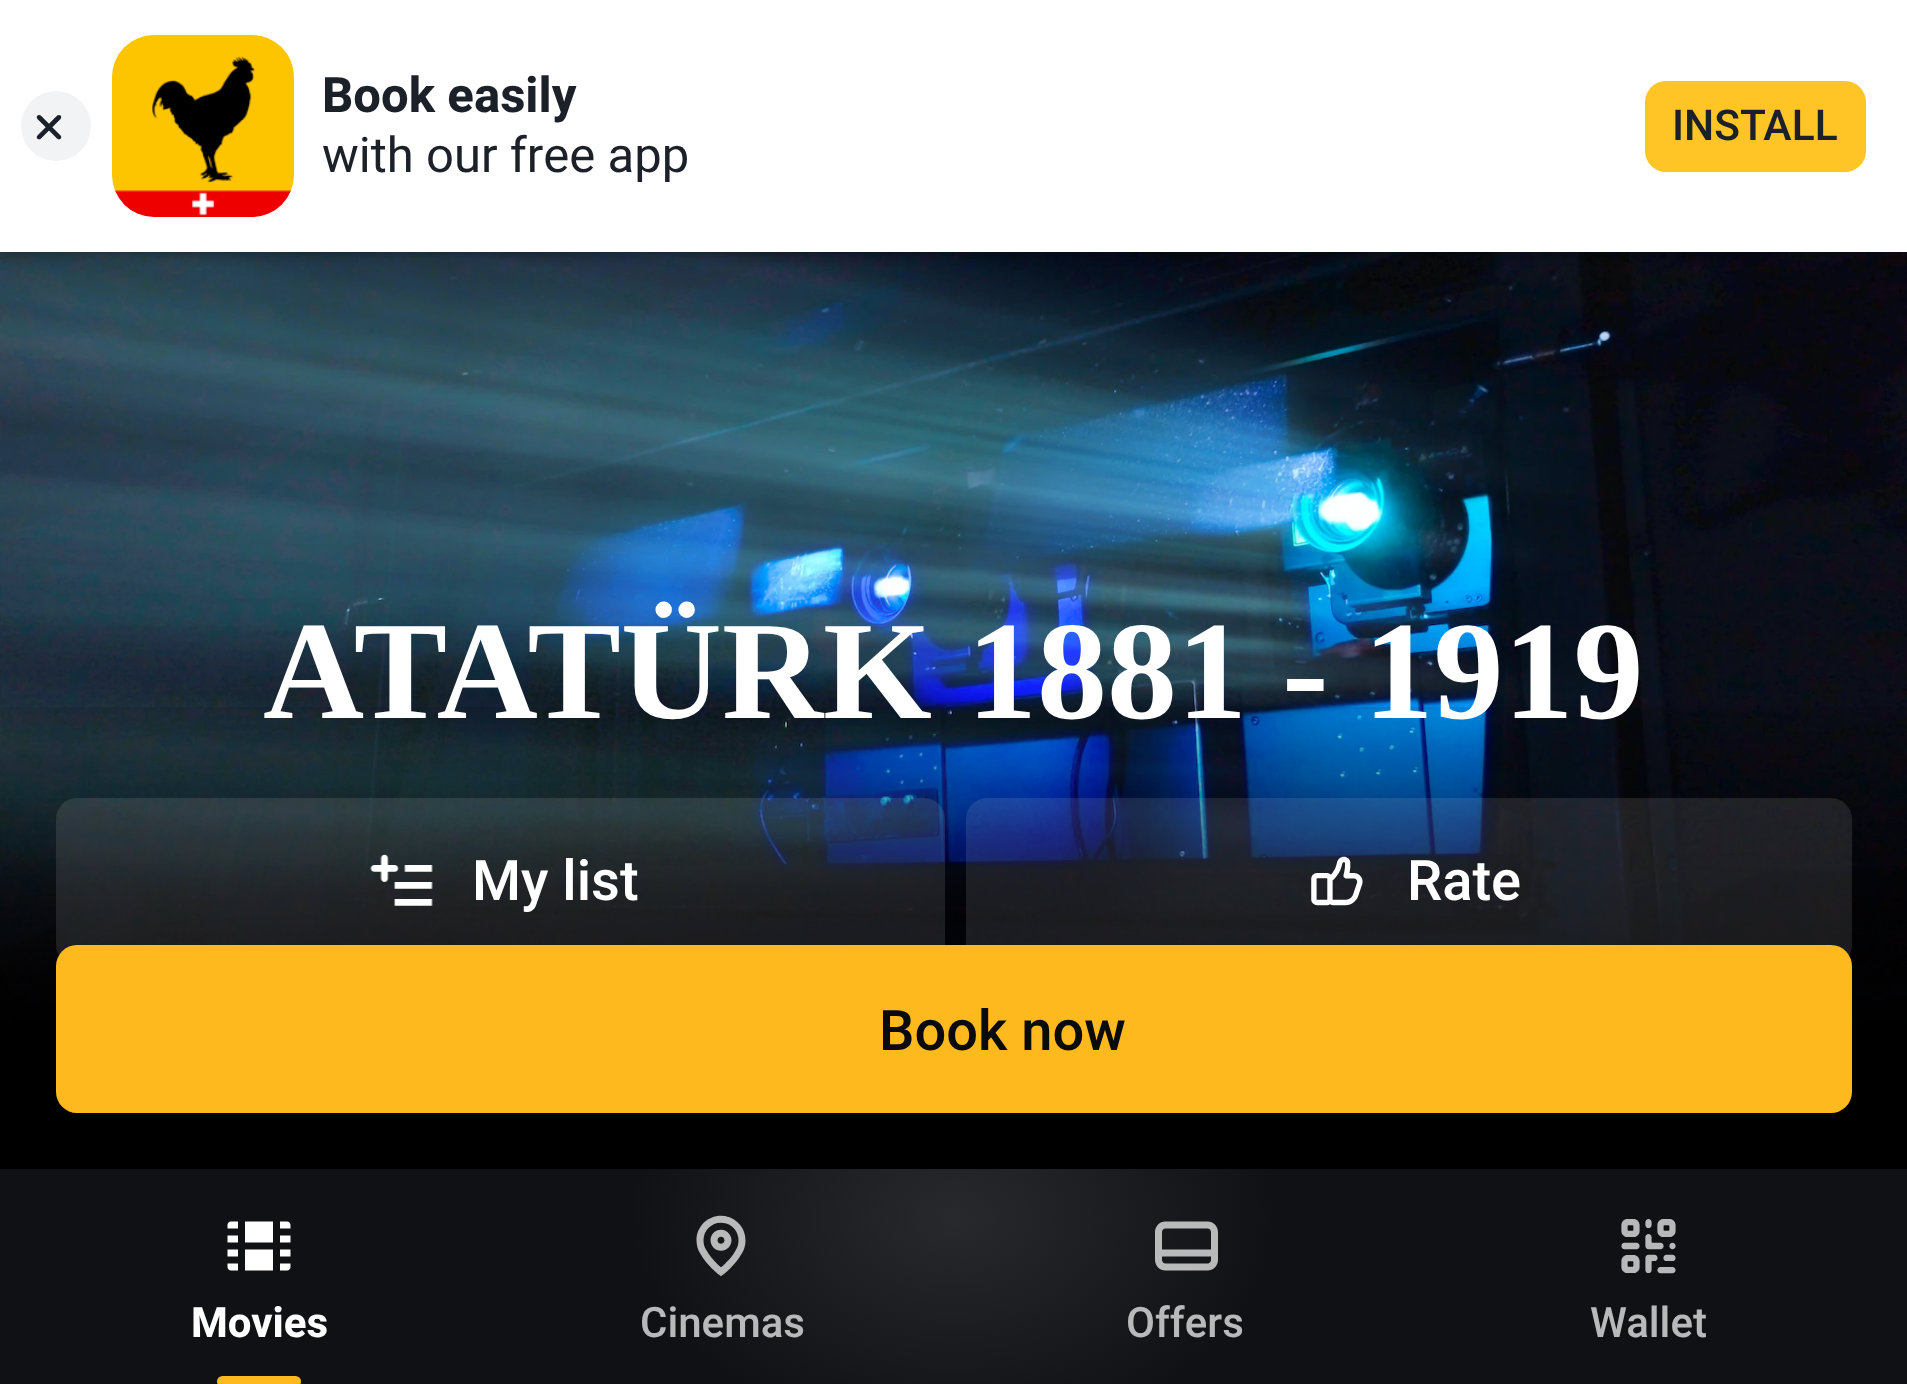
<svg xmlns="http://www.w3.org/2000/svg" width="1907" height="1384">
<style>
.a{font:bold 49px Heebo;fill:#1c2129}
.b{font:49px Heebo;fill:#1c2129}
.c{font:500 42.5px Heebo;fill:#1c2129}
.d{font:bold 140px Liberation Serif;fill:#fff}
.e{font:500 56px Heebo;fill:#fff}
.f{font:500 56px Heebo;fill:#090a0b}
.g{font:bold 42px Heebo;fill:#fff}
.h{font:500 42px Heebo;fill:#b8b9ba}
</style>
<defs>
<radialGradient id="g1" gradientUnits="userSpaceOnUse" cx="0" cy="0" r="1" gradientTransform="matrix(324 0 0 226 954 1217)"><stop offset="0" stop-color="#28292c"/><stop offset="1" stop-color="#101114"/></radialGradient>
</defs>
<rect width="100%" height="100%" fill="#000"/>
<image href="3.png" x="0" y="252" width="1907" height="784"/>
<path fill="#00000066" filter="blur(7px)" d="M0 0h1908v252H0z"/>
<path fill="#fff" d="M0 0h1907v252H0z"/>
<circle fill="#f2f3f5" cx="56" cy="126" r="35"/>
<image href="1.png" x="36" y="115" width="26" height="25"/>
<image href="2.png" x="112" y="35" width="182" height="182"/>
<rect fill="#ffc426" x="1645" y="81" width="221" height="91" rx="21"/>
<rect fill="#ffffff1a" x="56" y="798" width="889" height="168" rx="21"/>
<image href="4.png" x="370" y="854" width="63" height="52"/>
<rect fill="#ffffff1a" x="966" y="798" width="886" height="168" rx="21"/>
<image href="5.png" x="1311" y="856" width="52" height="50"/>
<rect fill="#feb91e" x="56" y="945" width="1796" height="168" rx="21"/>
<path fill="url(#g1)" d="M0 1169h1907v215H0z"/>
<image href="6.png" x="227" y="1221" width="64" height="50"/>
<rect fill="#feb91e" x="217" y="1376" width="84" height="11" rx="5.5"/>
<image href="7.png" x="696" y="1215" width="50" height="62"/>
<image href="8.png" x="1155" y="1221" width="63" height="50"/>
<image href="9.png" x="1621" y="1219" width="55" height="55"/>
<text class="a" x="322" y="112">Book easily</text>
<text class="b" x="322" y="172">with our free app</text>
<text class="c" x="1672" y="140">INSTALL</text>
<text class="d" x="263" y="718">ATATÜRK 1881 - 1919</text>
<text class="e" x="472" y="900">My list</text>
<text class="e" x="1407" y="900">Rate</text>
<text class="f" x="879" y="1050">Book now</text>
<text class="g" x="191" y="1337">Movies</text>
<text class="h" x="640" y="1337">Cinemas</text>
<text class="h" x="1126" y="1337">Offers</text>
<text class="h" x="1590" y="1337">Wallet</text>
</svg>
